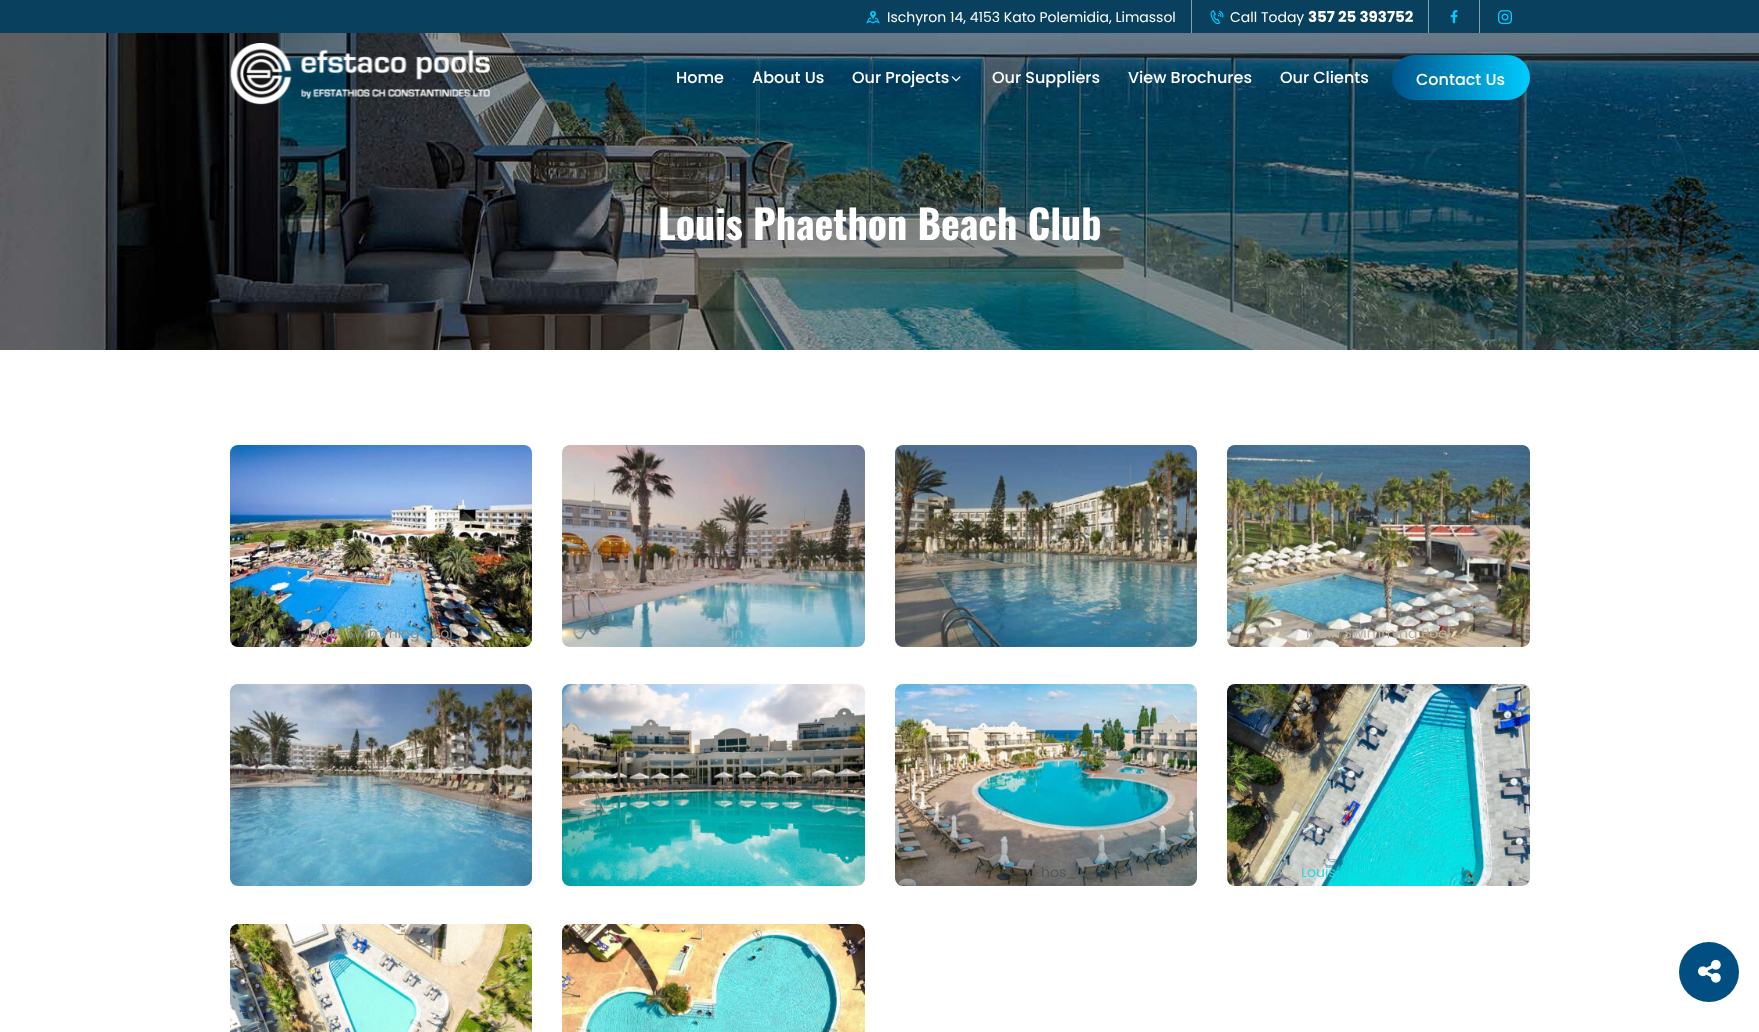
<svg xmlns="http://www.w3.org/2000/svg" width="1759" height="1032">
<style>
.a{font:14px Poppins;fill:#fff}
.b{font:bold 15px Poppins;fill:#fff}
.c{font:500 16px Poppins;fill:#fff}
.d{font:bold 40px Oswald;fill:#fff}
.e{font:14px Poppins;fill:#818e8d}
.f{font:14px Poppins;fill:#8ab6c4}
.g{font:14px Poppins;fill:#b8b0a4}
.h{font:14px Poppins;fill:#565752}
.i{font:14px Poppins;fill:#2dd9dd}
</style>
<defs>
<linearGradient id="g1" gradientUnits="userSpaceOnUse" x1="1392" y1="78" x2="1530" y2="78"><stop offset="0" stop-color="#005288"/><stop offset="1" stop-color="#0cf"/></linearGradient>
</defs>
<rect width="100%" height="100%" fill="#fff"/>
<path fill="#08405d" d="M0 0h1759v33H0z"/>
<image href="1.png" x="866" y="11" width="14" height="13"/>
<path fill="#84a0ae" d="M1191 0h1v33H1191z"/>
<image href="2.png" x="1210" y="10" width="14" height="15"/>
<path fill="#84a0ae" d="M1428 0h1v33H1428z"/>
<image href="3.png" x="1450" y="10" width="8" height="14"/>
<path fill="#84a0ae" d="M1479 0h1v33H1479z"/>
<image href="4.png" x="1498" y="10" width="14" height="15"/>
<image href="7.png" x="0" y="33" width="1759" height="317"/>
<image href="5.png" x="230" y="43" width="260" height="62"/>
<image href="6.png" x="951" y="76" width="10" height="6"/>
<rect fill="url(#g1)" x="1392" y="55" width="138" height="45" rx="22.5"/>
<image href="8.png" x="230" y="445" width="302" height="202"/>
<image href="9.png" x="562" y="445" width="303" height="202"/>
<image href="10.png" x="895" y="445" width="302" height="202"/>
<image href="11.png" x="1227" y="445" width="303" height="202"/>
<image href="12.png" x="230" y="684" width="302" height="202"/>
<image href="13.png" x="562" y="684" width="303" height="202"/>
<image href="14.png" x="895" y="684" width="302" height="202"/>
<image href="15.png" x="1227" y="684" width="303" height="202"/>
<image href="16.png" x="230" y="924" width="302" height="108"/>
<image href="17.png" x="562" y="924" width="303" height="108"/>
<circle fill="#004e82" cx="1709" cy="972" r="30"/>
<image href="18.png" x="1698" y="959" width="23" height="24"/>
<text class="a" x="887" y="22">Ischyron 14, 4153 Kato Polemidia, Limassol</text>
<text class="a" x="1230" y="22">Call Today</text>
<text class="b" x="1308" y="22">357 25 393752</text>
<text class="c" x="676" y="83">Home</text>
<text class="c" x="752" y="83">About Us</text>
<text class="c" x="852" y="83">Our Projects</text>
<text class="c" x="992" y="83">Our Suppliers</text>
<text class="c" x="1128" y="83">View Brochures</text>
<text class="c" x="1280" y="83">Our Clients</text>
<text class="c" x="1416" y="85">Contact Us</text>
<text class="d" x="658" y="240">Louis Phaethon Beach Club</text>
<text class="e" x="308" y="638">Main Swimming Pool</text>
<text class="f" x="731" y="638">in</text>
<text class="g" x="1306" y="638">Main Swimming Pool</text>
<text class="h" x="1041" y="877">hos_</text>
<text class="i" x="1301" y="877">Louis</text>
</svg>
